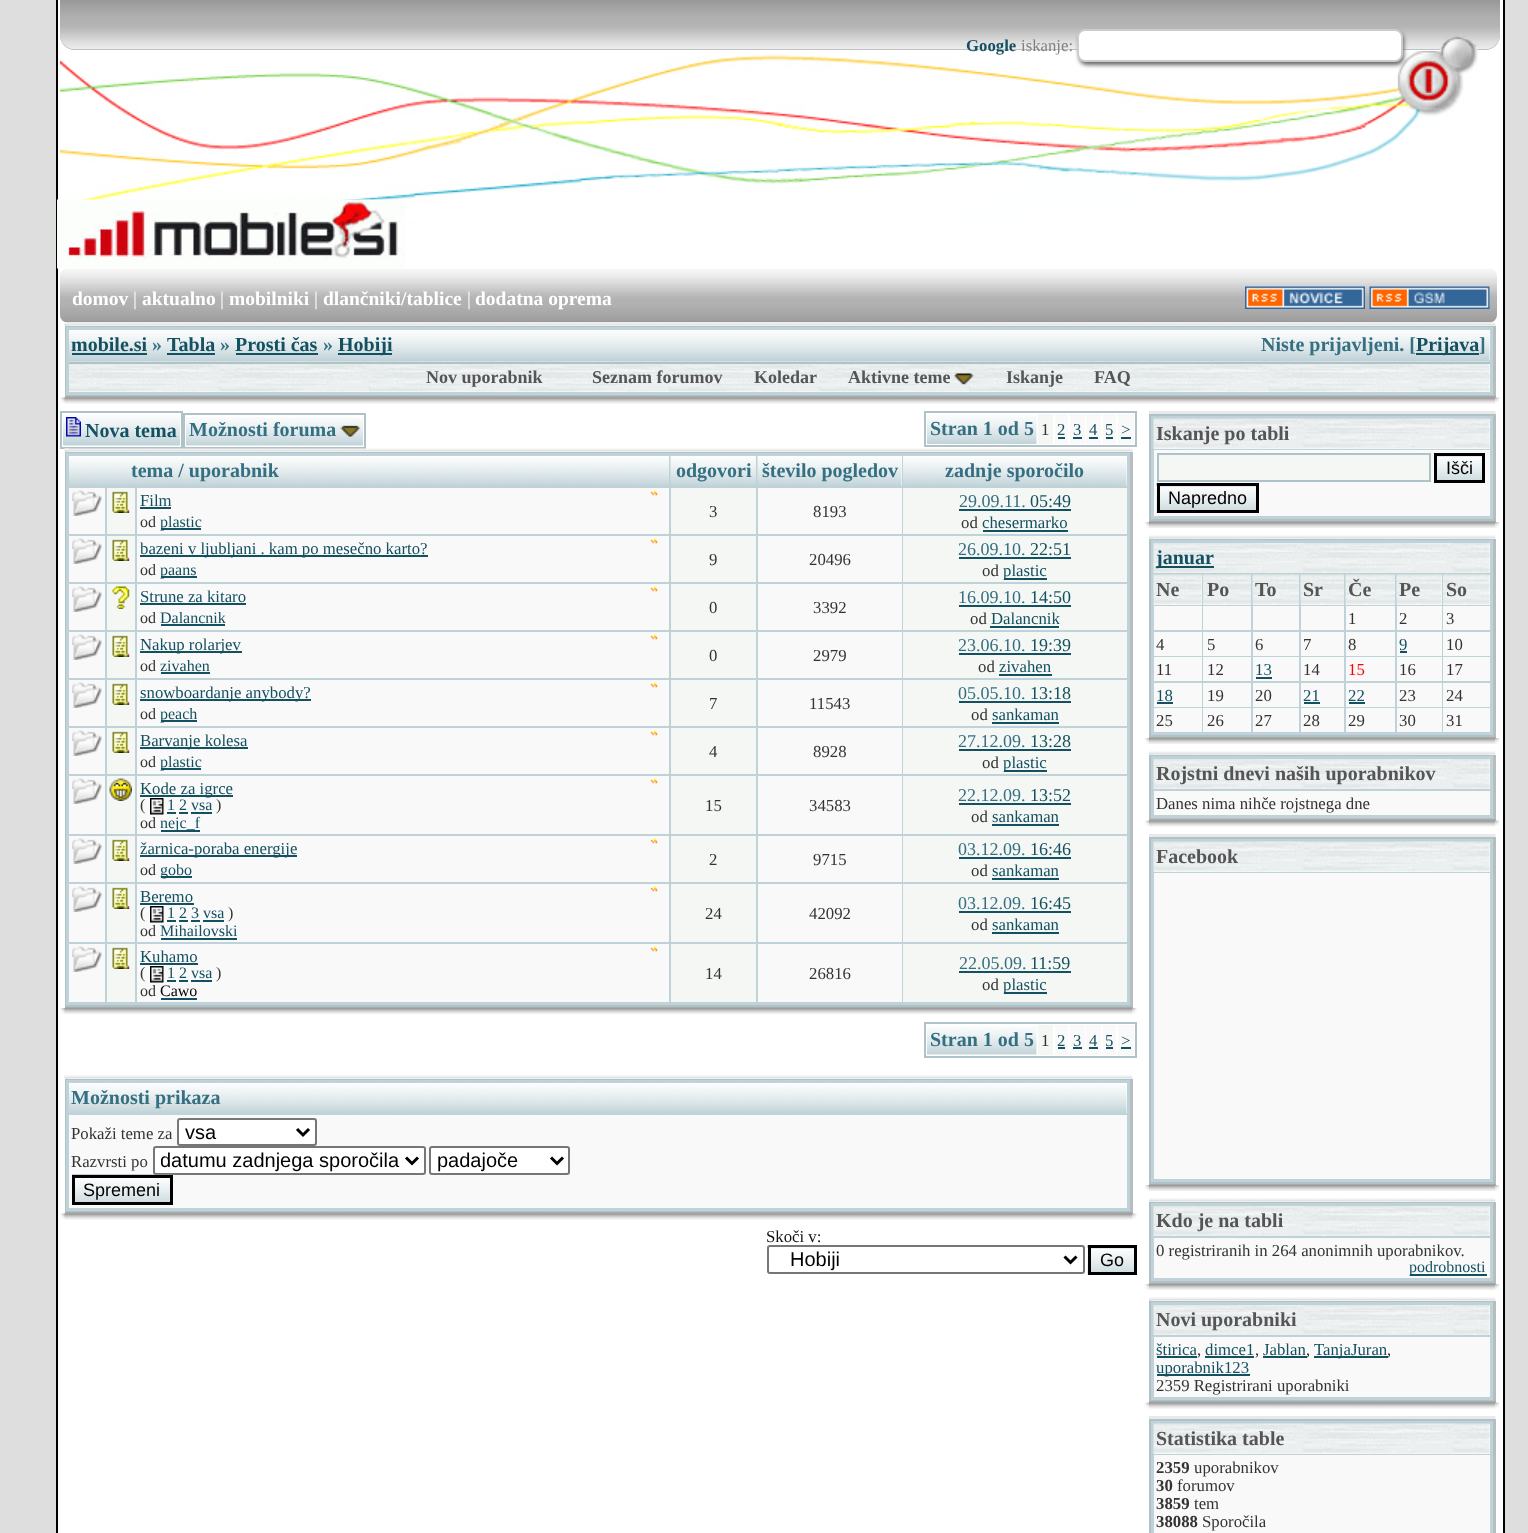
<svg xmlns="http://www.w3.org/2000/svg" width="1528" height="1533">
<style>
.a{font:bold 16.75px Liberation Serif;fill:#135060}
.b{font:16.75px Liberation Serif;fill:#808080}
.c{font:bold 19.5px Liberation Serif;fill:#fff}
.d{font:19.5px Liberation Serif;fill:#fff}
.e{font:bold 20px Liberation Serif;fill:#135060}
.f{font:bold 20px Liberation Serif;fill:#357082}
.g{font:bold 18px Liberation Serif;fill:#555}
.h{font:16.75px Liberation Serif;fill:#333}
.i{font:16.75px Liberation Serif;fill:#135060}
.j{font:16px Liberation Serif;fill:#333}
.k{font:16px Liberation Serif;fill:#135060}
.l{font:18px Liberation Serif;fill:#357082}
.m{font:18px Liberation Serif;fill:#135060}
.n{font:16px Liberation Serif;fill:#000}
.o{font:20px Liberation Sans;fill:#000}
.p{font:18px Liberation Sans;fill:#000}
.q{font:16.75px Liberation Serif;fill:#121212}
.r{font:bold 20px Liberation Serif;fill:#555}
.s{font:16.75px Liberation Serif;fill:#f00}
.t{font:bold 16.75px Liberation Serif;fill:#333}
</style>
<defs>
<clipPath id="clip1"><path d="M161 1148h240v25H161z"/></clipPath>
</defs>
<rect width="100%" height="100%" fill="#dedede"/>
<path fill="#fff" d="M58 0h1445v1533H58z"/>
<path fill="#000" d="M1503 0h2v1533H1503z"/>
<path fill="#000" d="M56 0h2v1533H56z"/>
<path fill="#b2b2b2" d="M60 0h1440v35c0 8.5-6.5 15-15 15h-1410c-8.5 0-15-6.5-15-15z"/>
<image href="1.png" x="60" y="0" width="1440" height="50"/>
<image href="3.png" x="60" y="51" width="1418" height="175"/>
<rect fill="#666" filter="blur(2px)" x="1079" y="32" width="325" height="33" rx="8"/>
<rect fill="#fff" stroke="#ccc" stroke-width="2" x="1078" y="30" width="324" height="31" rx="7"/>
<image href="2.png" x="1439" y="36" width="39" height="15"/>
<image href="4.png" x="57" y="199" width="348" height="70"/>
<image href="5.png" x="60" y="269" width="1437" height="54"/>
<image href="6.png" x="1245" y="286" width="120" height="23"/>
<image href="7.png" x="1369" y="286" width="121" height="23"/>
<image href="8.png" x="64" y="322" width="1432" height="4"/>
<image href="9.png" x="64" y="324" width="5" height="2"/>
<path fill="#ffffff80" d="M1495 323h1v2H1495z"/>
<path fill="#afc2c7" d="M65 326h1429v70H65z"/>
<path fill="#bbb" d="M1494 326h2v72H1494z"/>
<path fill="#aaa" d="M65 396h1431v2H65z"/>
<path fill="#bfd2d7" d="M66 327h1427v68H66z"/>
<path fill="#fff" d="M69 330h1421v30H69z"/>
<image href="10.png" x="69" y="331" width="1421" height="29"/>
<path fill="#135060" d="M72 353h75v2H72z"/>
<path fill="#135060" d="M167 353h48v2H167z"/>
<path fill="#135060" d="M236 353h82v2H236z"/>
<path fill="#135060" d="M338 353h54v2H338z"/>
<path fill="#135060" d="M1416 353h63v2H1416z"/>
<path fill="#fff" d="M69 364h1421v28H69z"/>
<image href="11.png" x="69" y="361" width="1421" height="31"/>
<path fill="#afc2c7" d="M69 362h1421v2H69z"/>
<image href="12.png" x="954" y="373" width="20" height="12"/>
<image href="14.png" x="64" y="397" width="1432" height="7"/>
<image href="13.png" x="60" y="397" width="5" height="6"/>
<image href="15.png" x="64" y="397" width="1" height="6"/>
<image href="16.png" x="1495" y="397" width="5" height="6"/>
<path fill="none" stroke="#afc2c7" stroke-width="2" d="M61 412h121v36H61z"/>
<image href="17.png" x="63" y="415" width="117" height="31"/>
<image href="18.png" x="66" y="417" width="15" height="20"/>
<path fill="none" stroke="#afc2c7" stroke-width="2" d="M184 414h181v34H184z"/>
<image href="19.png" x="186" y="417" width="177" height="29"/>
<image href="20.png" x="340" y="425" width="20" height="12"/>
<path fill="none" stroke="#afc2c7" stroke-width="2" d="M925 412h211v34H925z"/>
<image href="21.png" x="927" y="415" width="110" height="29"/>
<path fill="#f4f7f4" d="M1038 414h15v30H1038z"/>
<path fill="#f9f9f9" d="M1055 414h13v30H1055z"/>
<path fill="#135060" d="M1058 437h7v2H1058z"/>
<path fill="#f9f9f9" d="M1070 414h15v30H1070z"/>
<path fill="#135060" d="M1073 437h9v2H1073z"/>
<path fill="#f9f9f9" d="M1086 414h15v30H1086z"/>
<path fill="#135060" d="M1089 437h9v2H1089z"/>
<path fill="#f9f9f9" d="M1103 414h13v30H1103z"/>
<path fill="#135060" d="M1106 437h7v2H1106z"/>
<path fill="#f9f9f9" d="M1118 414h16v30H1118z"/>
<path fill="#135060" d="M1121 437h10v2H1121z"/>
<image href="22.png" x="64" y="448" width="1069" height="4"/>
<image href="23.png" x="64" y="448" width="5" height="4"/>
<path fill="#ffffff80" d="M1132 449h1v2H1132z"/>
<path fill="#afc2c7" d="M65 452h1066v555H65z"/>
<path fill="#bbb" d="M1131 452h2v556H1131z"/>
<path fill="#aaa" d="M65 1007h1068v2H65z"/>
<path fill="#bfd2d7" d="M66 453h1064v552H66z"/>
<path fill="#fff" d="M69 456h600v1H69z"/>
<image href="24.png" x="69" y="457" width="600" height="29"/>
<image href="25.png" x="670" y="456" width="86" height="30"/>
<path fill="#fff" d="M901 456h1v30H901z"/>
<image href="26.png" x="757" y="456" width="145" height="30"/>
<path fill="#fff" d="M903 456h224v30H903z"/>
<image href="27.png" x="903" y="457" width="224" height="29"/>
<path fill="#f9f9f9" d="M69 488h36v46H69z"/>
<image href="28.png" x="72" y="490" width="30" height="26"/>
<path fill="#f4f7f4" d="M107 488h28v46H107z"/>
<image href="29.png" x="112" y="491" width="18" height="22"/>
<path fill="#f9f9f9" d="M137 488h532v46H137z"/>
<image href="30.png" x="650" y="490" width="8" height="6"/>
<path fill="#135060" d="M140 507h31v2H140z"/>
<path fill="#135060" d="M161 528h40v2H161z"/>
<path fill="#f4f7f4" d="M671 488h85v46H671z"/>
<path fill="#f9f9f9" d="M758 488h144v46H758z"/>
<path fill="#f4f7f4" d="M903 488h224v46H903z"/>
<path fill="#135060" d="M959 509h112v2H959z"/>
<path fill="#135060" d="M983 530h85v2H983z"/>
<path fill="#f9f9f9" d="M69 536h36v46H69z"/>
<image href="28.png" x="72" y="538" width="30" height="26"/>
<path fill="#f4f7f4" d="M107 536h28v46H107z"/>
<image href="29.png" x="112" y="539" width="18" height="22"/>
<path fill="#f9f9f9" d="M137 536h532v46H137z"/>
<image href="30.png" x="650" y="538" width="8" height="6"/>
<path fill="#135060" d="M140 555h288v2H140z"/>
<path fill="#135060" d="M161 576h36v2H161z"/>
<path fill="#f4f7f4" d="M671 536h85v46H671z"/>
<path fill="#f9f9f9" d="M758 536h144v46H758z"/>
<path fill="#f4f7f4" d="M903 536h224v46H903z"/>
<path fill="#135060" d="M959 557h112v2H959z"/>
<path fill="#135060" d="M1004 578h43v2H1004z"/>
<path fill="#f9f9f9" d="M69 584h36v46H69z"/>
<image href="28.png" x="72" y="586" width="30" height="26"/>
<path fill="#f4f7f4" d="M107 584h28v46H107z"/>
<image href="31.png" x="112" y="586" width="18" height="23"/>
<path fill="#f9f9f9" d="M137 584h532v46H137z"/>
<image href="30.png" x="650" y="586" width="8" height="6"/>
<path fill="#135060" d="M140 603h106v2H140z"/>
<path fill="#135060" d="M161 624h64v2H161z"/>
<path fill="#f4f7f4" d="M671 584h85v46H671z"/>
<path fill="#f9f9f9" d="M758 584h144v46H758z"/>
<path fill="#f4f7f4" d="M903 584h224v46H903z"/>
<path fill="#135060" d="M959 605h112v2H959z"/>
<path fill="#135060" d="M990 626h69v2H990z"/>
<path fill="#f9f9f9" d="M69 632h36v46H69z"/>
<image href="28.png" x="72" y="634" width="30" height="26"/>
<path fill="#f4f7f4" d="M107 632h28v46H107z"/>
<image href="29.png" x="112" y="635" width="18" height="22"/>
<path fill="#f9f9f9" d="M137 632h532v46H137z"/>
<image href="30.png" x="650" y="634" width="8" height="6"/>
<path fill="#135060" d="M140 651h102v2H140z"/>
<path fill="#135060" d="M161 672h49v2H161z"/>
<path fill="#f4f7f4" d="M671 632h85v46H671z"/>
<path fill="#f9f9f9" d="M758 632h144v46H758z"/>
<path fill="#f4f7f4" d="M903 632h224v46H903z"/>
<path fill="#135060" d="M959 653h112v2H959z"/>
<path fill="#135060" d="M999 674h53v2H999z"/>
<path fill="#f9f9f9" d="M69 680h36v46H69z"/>
<image href="28.png" x="72" y="682" width="30" height="26"/>
<path fill="#f4f7f4" d="M107 680h28v46H107z"/>
<image href="29.png" x="112" y="683" width="18" height="22"/>
<path fill="#f9f9f9" d="M137 680h532v46H137z"/>
<image href="30.png" x="650" y="682" width="8" height="6"/>
<path fill="#135060" d="M140 699h171v2H140z"/>
<path fill="#135060" d="M161 720h36v2H161z"/>
<path fill="#f4f7f4" d="M671 680h85v46H671z"/>
<path fill="#f9f9f9" d="M758 680h144v46H758z"/>
<path fill="#f4f7f4" d="M903 680h224v46H903z"/>
<path fill="#135060" d="M959 701h112v2H959z"/>
<path fill="#135060" d="M992 722h67v2H992z"/>
<path fill="#f9f9f9" d="M69 728h36v46H69z"/>
<image href="28.png" x="72" y="730" width="30" height="26"/>
<path fill="#f4f7f4" d="M107 728h28v46H107z"/>
<image href="29.png" x="112" y="731" width="18" height="22"/>
<path fill="#f9f9f9" d="M137 728h532v46H137z"/>
<image href="30.png" x="650" y="730" width="8" height="6"/>
<path fill="#135060" d="M140 747h108v2H140z"/>
<path fill="#135060" d="M161 768h40v2H161z"/>
<path fill="#f4f7f4" d="M671 728h85v46H671z"/>
<path fill="#f9f9f9" d="M758 728h144v46H758z"/>
<path fill="#f4f7f4" d="M903 728h224v46H903z"/>
<path fill="#135060" d="M959 749h112v2H959z"/>
<path fill="#135060" d="M1004 770h43v2H1004z"/>
<path fill="#f9f9f9" d="M69 776h36v58H69z"/>
<image href="28.png" x="72" y="778" width="30" height="26"/>
<path fill="#f4f7f4" d="M107 776h28v58H107z"/>
<image href="32.png" x="109" y="778" width="23" height="23"/>
<path fill="#f9f9f9" d="M137 776h532v58H137z"/>
<image href="30.png" x="650" y="778" width="8" height="6"/>
<path fill="#135060" d="M140 795h93v2H140z"/>
<image href="33.png" x="150" y="798" width="14" height="17"/>
<path fill="#135060" d="M167 812h9v2H167z"/>
<path fill="#135060" d="M179 812h9v2H179z"/>
<path fill="#135060" d="M191 812h21v2H191z"/>
<path fill="#135060" d="M161 830h39v2H161z"/>
<path fill="#f4f7f4" d="M671 776h85v58H671z"/>
<path fill="#f9f9f9" d="M758 776h144v58H758z"/>
<path fill="#f4f7f4" d="M903 776h224v58H903z"/>
<path fill="#135060" d="M959 803h112v2H959z"/>
<path fill="#135060" d="M992 824h67v2H992z"/>
<path fill="#f9f9f9" d="M69 836h36v46H69z"/>
<image href="28.png" x="72" y="838" width="30" height="26"/>
<path fill="#f4f7f4" d="M107 836h28v46H107z"/>
<image href="29.png" x="112" y="839" width="18" height="22"/>
<path fill="#f9f9f9" d="M137 836h532v46H137z"/>
<image href="30.png" x="650" y="838" width="8" height="6"/>
<path fill="#135060" d="M140 855h157v2H140z"/>
<path fill="#135060" d="M161 876h31v2H161z"/>
<path fill="#f4f7f4" d="M671 836h85v46H671z"/>
<path fill="#f9f9f9" d="M758 836h144v46H758z"/>
<path fill="#f4f7f4" d="M903 836h224v46H903z"/>
<path fill="#135060" d="M959 857h112v2H959z"/>
<path fill="#135060" d="M992 878h67v2H992z"/>
<path fill="#f9f9f9" d="M69 884h36v58H69z"/>
<image href="28.png" x="72" y="886" width="30" height="26"/>
<path fill="#f4f7f4" d="M107 884h28v58H107z"/>
<image href="29.png" x="112" y="887" width="18" height="22"/>
<path fill="#f9f9f9" d="M137 884h532v58H137z"/>
<image href="30.png" x="650" y="886" width="8" height="6"/>
<path fill="#135060" d="M140 903h54v2H140z"/>
<image href="33.png" x="150" y="906" width="14" height="17"/>
<path fill="#135060" d="M167 920h9v2H167z"/>
<path fill="#135060" d="M179 920h9v2H179z"/>
<path fill="#135060" d="M191 920h9v2H191z"/>
<path fill="#135060" d="M203 920h21v2H203z"/>
<path fill="#135060" d="M161 938h76v2H161z"/>
<path fill="#f4f7f4" d="M671 884h85v58H671z"/>
<path fill="#f9f9f9" d="M758 884h144v58H758z"/>
<path fill="#f4f7f4" d="M903 884h224v58H903z"/>
<path fill="#135060" d="M959 911h112v2H959z"/>
<path fill="#135060" d="M992 932h67v2H992z"/>
<path fill="#f9f9f9" d="M69 944h36v58H69z"/>
<image href="28.png" x="72" y="946" width="30" height="26"/>
<path fill="#f4f7f4" d="M107 944h28v58H107z"/>
<image href="29.png" x="112" y="947" width="18" height="22"/>
<path fill="#f9f9f9" d="M137 944h532v58H137z"/>
<image href="30.png" x="650" y="946" width="8" height="6"/>
<path fill="#135060" d="M140 963h58v2H140z"/>
<image href="33.png" x="150" y="966" width="14" height="17"/>
<path fill="#135060" d="M167 980h9v2H167z"/>
<path fill="#135060" d="M179 980h9v2H179z"/>
<path fill="#135060" d="M191 980h21v2H191z"/>
<path fill="#135060" d="M161 998h36v2H161z"/>
<path fill="#f4f7f4" d="M671 944h85v58H671z"/>
<path fill="#f9f9f9" d="M758 944h144v58H758z"/>
<path fill="#f4f7f4" d="M903 944h224v58H903z"/>
<path fill="#135060" d="M959 971h112v2H959z"/>
<path fill="#135060" d="M1004 992h43v2H1004z"/>
<image href="35.png" x="64" y="1008" width="1069" height="6"/>
<image href="34.png" x="60" y="1008" width="5" height="6"/>
<image href="36.png" x="64" y="1008" width="1" height="6"/>
<image href="37.png" x="1132" y="1008" width="5" height="6"/>
<path fill="none" stroke="#afc2c7" stroke-width="2" d="M925 1023h211v34H925z"/>
<image href="38.png" x="927" y="1026" width="110" height="29"/>
<path fill="#f4f7f4" d="M1038 1025h15v30H1038z"/>
<path fill="#f9f9f9" d="M1055 1025h13v30H1055z"/>
<path fill="#135060" d="M1058 1047h7v2H1058z"/>
<path fill="#f9f9f9" d="M1070 1025h15v30H1070z"/>
<path fill="#135060" d="M1073 1047h9v2H1073z"/>
<path fill="#f9f9f9" d="M1086 1025h15v30H1086z"/>
<path fill="#135060" d="M1089 1047h9v2H1089z"/>
<path fill="#f9f9f9" d="M1103 1025h13v30H1103z"/>
<path fill="#135060" d="M1106 1047h7v2H1106z"/>
<path fill="#f9f9f9" d="M1118 1025h16v30H1118z"/>
<path fill="#135060" d="M1121 1047h10v2H1121z"/>
<image href="39.png" x="64" y="1075" width="1069" height="4"/>
<image href="40.png" x="64" y="1075" width="5" height="4"/>
<path fill="#ffffff80" d="M1132 1076h1v2H1132z"/>
<path fill="#afc2c7" d="M65 1079h1066v133H65z"/>
<path fill="#bbb" d="M1131 1079h2v135H1131z"/>
<path fill="#aaa" d="M65 1212h1068v2H65z"/>
<path fill="#bfd2d7" d="M66 1080h1064v131H66z"/>
<path fill="#fff" d="M69 1083h1058v30H69z"/>
<image href="41.png" x="69" y="1084" width="1058" height="29"/>
<path fill="#f9f9f9" d="M69 1115h1058v93H69z"/>
<rect fill="#fff" stroke="#767676" stroke-width="2" x="178" y="1119" width="138" height="26" rx="2"/>
<path fill="none" stroke="#000" stroke-width="3" d="M297 1129l6 6l6-6"/>
<rect fill="#fff" stroke="#767676" stroke-width="2" x="154" y="1147" width="271" height="27" rx="2"/>
<path fill="none" stroke="#000" stroke-width="3" d="M406 1157.5l6 6l6-6"/>
<rect fill="#fff" stroke="#767676" stroke-width="2" x="430" y="1147" width="139" height="27" rx="2"/>
<path fill="none" stroke="#000" stroke-width="3" d="M551 1157.5l6 6l6-6"/>
<image href="42.png" x="72" y="1174" width="101" height="28"/>
<path fill="none" stroke="#000" stroke-width="3" d="M73.5 1176.5h98v27H73.5z"/>
<image href="43.png" x="64" y="1213" width="1069" height="7"/>
<image href="13.png" x="60" y="1213" width="5" height="6"/>
<image href="15.png" x="64" y="1213" width="1" height="6"/>
<image href="44.png" x="1132" y="1213" width="5" height="6"/>
<rect fill="none" stroke="#767676" stroke-width="2" x="768" y="1246" width="316" height="27" rx="2"/>
<path fill="none" stroke="#000" stroke-width="3" d="M1064.5 1256.5l6 6l6-6"/>
<image href="45.png" x="1087" y="1245" width="47" height="30"/>
<path fill="none" stroke="#000" stroke-width="3" d="M1089.5 1246.5h46v27H1089.5z"/>
<path fill="#e9e9e9" d="M1149 411h347v3H1149z"/>
<path fill="#f4f4f4" d="M1495 411h1v3H1495z"/>
<path fill="#afc2c7" d="M1149 414h345v107H1149z"/>
<path fill="#bbb" d="M1494 414h2v108H1494z"/>
<path fill="#aaa" d="M1149 521h347v2H1149z"/>
<path fill="#bfd2d7" d="M1151 416h342v103H1151z"/>
<path fill="#fff" d="M1154 419h336v30H1154z"/>
<image href="46.png" x="1153" y="418" width="337" height="31"/>
<path fill="#f9f9f9" d="M1154 450h336v66H1154z"/>
<path fill="#f4f7f4" stroke="#afc2c7" stroke-width="2" d="M1158 454h272v27H1158z"/>
<image href="47.png" x="1437" y="456" width="45" height="24"/>
<path fill="none" stroke="#000" stroke-width="3" d="M1435.5 454.5h48v27H1435.5z"/>
<image href="48.png" x="1156" y="483" width="100" height="30"/>
<path fill="none" stroke="#000" stroke-width="3" d="M1158.5 484.5h99v27H1158.5z"/>
<image href="49.png" x="1144" y="522" width="5" height="6"/>
<image href="50.png" x="1149" y="522" width="347" height="6"/>
<image href="37.png" x="1495" y="522" width="5" height="6"/>
<image href="51.png" x="1149" y="535" width="347" height="4"/>
<path fill="#e7e7e7" d="M1149 538h4v1H1149z"/>
<path fill="#ffffff80" d="M1495 536h1v2H1495z"/>
<path fill="#afc2c7" d="M1149 539h345v198H1149z"/>
<path fill="#bbb" d="M1494 539h2v199H1494z"/>
<path fill="#aaa" d="M1149 737h347v2H1149z"/>
<path fill="#bfd2d7" d="M1151 540h342v195H1151z"/>
<path fill="#fff" d="M1489 543h1v30H1489z"/>
<image href="52.png" x="1153" y="543" width="337" height="30"/>
<path fill="#135060" d="M1157 566h57v2H1157z"/>
<path fill="#fff" d="M1154 575h48v30H1154z"/>
<image href="53.png" x="1153" y="574" width="49" height="31"/>
<path fill="#fff" d="M1203 604h48v1H1203z"/>
<image href="54.png" x="1203" y="574" width="48" height="31"/>
<path fill="#fff" d="M1253 604h46v1H1253z"/>
<image href="55.png" x="1252" y="574" width="47" height="31"/>
<path fill="#fff" d="M1301 604h43v1H1301z"/>
<image href="56.png" x="1300" y="574" width="44" height="31"/>
<path fill="#fff" d="M1346 604h49v1H1346z"/>
<image href="57.png" x="1345" y="574" width="50" height="31"/>
<path fill="#fff" d="M1397 575h45v30H1397z"/>
<image href="58.png" x="1396" y="574" width="46" height="31"/>
<path fill="#fff" d="M1443 575h47v30H1443z"/>
<image href="59.png" x="1443" y="574" width="47" height="31"/>
<path fill="#f9f9f9" d="M1154 606h48v24H1154z"/>
<path fill="#f9f9f9" d="M1203 606h48v24H1203z"/>
<path fill="#f9f9f9" d="M1253 606h46v24H1253z"/>
<path fill="#f9f9f9" d="M1301 606h43v24H1301z"/>
<path fill="#f9f9f9" d="M1346 606h49v24H1346z"/>
<path fill="#f9f9f9" d="M1397 606h45v24H1397z"/>
<path fill="#f9f9f9" d="M1443 606h47v24H1443z"/>
<path fill="#f9f9f9" d="M1154 632h48v24H1154z"/>
<path fill="#f9f9f9" d="M1203 632h48v24H1203z"/>
<path fill="#f9f9f9" d="M1253 632h46v24H1253z"/>
<path fill="#f9f9f9" d="M1301 632h43v24H1301z"/>
<path fill="#f9f9f9" d="M1346 632h49v24H1346z"/>
<path fill="#f9f9f9" d="M1397 632h45v24H1397z"/>
<path fill="#135060" d="M1400 651h7v2H1400z"/>
<path fill="#f9f9f9" d="M1443 632h47v24H1443z"/>
<path fill="#f9f9f9" d="M1154 657h48v24H1154z"/>
<path fill="#f9f9f9" d="M1203 657h48v24H1203z"/>
<path fill="#f9f9f9" d="M1253 657h46v24H1253z"/>
<path fill="#135060" d="M1256 677h16v2H1256z"/>
<path fill="#f9f9f9" d="M1301 657h43v24H1301z"/>
<path fill="#f9f9f9" d="M1346 657h49v24H1346z"/>
<path fill="#f9f9f9" d="M1397 657h45v24H1397z"/>
<path fill="#f9f9f9" d="M1443 657h47v24H1443z"/>
<path fill="#f9f9f9" d="M1154 683h48v24H1154z"/>
<path fill="#135060" d="M1157 702h16v2H1157z"/>
<path fill="#f9f9f9" d="M1203 683h48v24H1203z"/>
<path fill="#f9f9f9" d="M1253 683h46v24H1253z"/>
<path fill="#f9f9f9" d="M1301 683h43v24H1301z"/>
<path fill="#135060" d="M1304 702h16v2H1304z"/>
<path fill="#f9f9f9" d="M1346 683h49v24H1346z"/>
<path fill="#135060" d="M1349 702h16v2H1349z"/>
<path fill="#f9f9f9" d="M1397 683h45v24H1397z"/>
<path fill="#f9f9f9" d="M1443 683h47v24H1443z"/>
<path fill="#f9f9f9" d="M1154 708h48v24H1154z"/>
<path fill="#f9f9f9" d="M1203 708h48v24H1203z"/>
<path fill="#f9f9f9" d="M1253 708h46v24H1253z"/>
<path fill="#f9f9f9" d="M1301 708h43v24H1301z"/>
<path fill="#f9f9f9" d="M1346 708h49v24H1346z"/>
<path fill="#f9f9f9" d="M1397 708h45v24H1397z"/>
<path fill="#f9f9f9" d="M1443 708h47v24H1443z"/>
<image href="49.png" x="1144" y="738" width="5" height="6"/>
<image href="60.png" x="1149" y="738" width="347" height="6"/>
<image href="37.png" x="1495" y="738" width="5" height="6"/>
<image href="51.png" x="1149" y="751" width="347" height="4"/>
<path fill="#e7e7e7" d="M1149 754h4v1H1149z"/>
<path fill="#ffffff80" d="M1495 752h1v2H1495z"/>
<path fill="#afc2c7" d="M1149 755h345v64H1149z"/>
<path fill="#bbb" d="M1494 755h2v66H1494z"/>
<path fill="#aaa" d="M1149 819h347v2H1149z"/>
<path fill="#bfd2d7" d="M1151 756h342v62H1151z"/>
<path fill="#fff" d="M1489 759h1v30H1489z"/>
<image href="61.png" x="1153" y="759" width="337" height="30"/>
<path fill="#f9f9f9" d="M1154 791h336v24H1154z"/>
<image href="62.png" x="1144" y="820" width="5" height="6"/>
<image href="63.png" x="1149" y="820" width="347" height="7"/>
<image href="16.png" x="1495" y="820" width="5" height="6"/>
<path fill="#e9e9e9" d="M1149 834h347v3H1149z"/>
<path fill="#f4f4f4" d="M1495 834h1v3H1495z"/>
<path fill="#afc2c7" d="M1149 837h345v347H1149z"/>
<path fill="#bbb" d="M1494 837h2v348H1494z"/>
<path fill="#aaa" d="M1149 1184h347v2H1149z"/>
<path fill="#bfd2d7" d="M1151 839h342v343H1151z"/>
<path fill="#fff" d="M1154 842h336v30H1154z"/>
<image href="64.png" x="1153" y="841" width="337" height="31"/>
<path fill="#f9f9f9" d="M1154 873h336v306H1154z"/>
<image href="49.png" x="1144" y="1185" width="5" height="6"/>
<image href="65.png" x="1149" y="1185" width="347" height="6"/>
<image href="37.png" x="1495" y="1185" width="5" height="6"/>
<image href="51.png" x="1149" y="1198" width="347" height="4"/>
<path fill="#e7e7e7" d="M1149 1201h4v1H1149z"/>
<path fill="#ffffff80" d="M1495 1199h1v2H1495z"/>
<path fill="#afc2c7" d="M1149 1202h345v81H1149z"/>
<path fill="#bbb" d="M1494 1202h2v82H1494z"/>
<path fill="#aaa" d="M1149 1283h347v2H1149z"/>
<path fill="#bfd2d7" d="M1151 1203h342v78H1151z"/>
<path fill="#fff" d="M1489 1206h1v30H1489z"/>
<image href="66.png" x="1153" y="1206" width="337" height="30"/>
<path fill="#f9f9f9" d="M1154 1238h336v40H1154z"/>
<path fill="#135060" d="M1410 1274h77v2H1410z"/>
<image href="49.png" x="1144" y="1284" width="5" height="6"/>
<image href="50.png" x="1149" y="1284" width="347" height="6"/>
<image href="37.png" x="1495" y="1284" width="5" height="6"/>
<image href="51.png" x="1149" y="1297" width="347" height="4"/>
<path fill="#e7e7e7" d="M1149 1300h4v1H1149z"/>
<path fill="#ffffff80" d="M1495 1298h1v2H1495z"/>
<path fill="#afc2c7" d="M1149 1301h345v100H1149z"/>
<path fill="#bbb" d="M1494 1301h2v102H1494z"/>
<path fill="#aaa" d="M1149 1401h347v2H1149z"/>
<path fill="#bfd2d7" d="M1151 1302h342v98H1151z"/>
<path fill="#fff" d="M1489 1305h1v30H1489z"/>
<image href="52.png" x="1153" y="1305" width="337" height="30"/>
<path fill="#f9f9f9" d="M1154 1337h336v60H1154z"/>
<path fill="#135060" d="M1157 1356h40v2H1157z"/>
<path fill="#135060" d="M1205 1356h49v2H1205z"/>
<path fill="#135060" d="M1263 1356h44v2H1263z"/>
<path fill="#135060" d="M1314 1356h74v2H1314z"/>
<path fill="#135060" d="M1157 1374h93v2H1157z"/>
<image href="62.png" x="1144" y="1402" width="5" height="6"/>
<image href="63.png" x="1149" y="1402" width="347" height="7"/>
<image href="16.png" x="1495" y="1402" width="5" height="6"/>
<path fill="#e9e9e9" d="M1149 1416h347v3H1149z"/>
<path fill="#f4f4f4" d="M1495 1416h1v3H1495z"/>
<path fill="#afc2c7" d="M1149 1419h345v114H1149z"/>
<path fill="#bbb" d="M1494 1419h2v114H1494z"/>
<path fill="#bfd2d7" d="M1151 1421h342v112H1151z"/>
<path fill="#fff" d="M1154 1424h336v30H1154z"/>
<image href="67.png" x="1153" y="1423" width="337" height="31"/>
<path fill="#f9f9f9" d="M1154 1455h336v78H1154z"/>
<text class="a" x="966" y="51">Google</text>
<text class="b" x="1021" y="51">iskanje:</text>
<text class="c" x="72" y="305">domov</text>
<text class="d" x="133" y="305">|</text>
<text class="c" x="142" y="305">aktualno</text>
<text class="d" x="220" y="305">|</text>
<text class="c" x="229" y="305">mobilniki</text>
<text class="d" x="314" y="305">|</text>
<text class="c" x="323" y="305">dlančniki/tablice</text>
<text class="d" x="467" y="305">|</text>
<text class="c" x="475" y="305">dodatna oprema</text>
<text class="e" x="71" y="351">mobile.si</text>
<text class="f" x="152" y="351">»</text>
<text class="e" x="167" y="351">Tabla</text>
<text class="f" x="220" y="351">»</text>
<text class="e" x="235" y="351">Prosti čas</text>
<text class="f" x="323" y="351">»</text>
<text class="e" x="338" y="351">Hobiji</text>
<text class="f" x="1261" y="351">Niste prijavljeni. [</text>
<text class="e" x="1416" y="351">Prijava</text>
<text class="f" x="1479" y="351">]</text>
<text class="g" x="426" y="383">Nov uporabnik</text>
<text class="g" x="592" y="383">Seznam forumov</text>
<text class="g" x="754" y="383">Koledar</text>
<text class="g" x="848" y="383">Aktivne teme</text>
<text class="g" x="1006" y="383">Iskanje</text>
<text class="g" x="1094" y="383">FAQ</text>
<text class="e" x="85" y="437">Nova tema</text>
<text class="f" x="189" y="436">Možnosti foruma</text>
<text class="f" x="930" y="435">Stran 1 od 5</text>
<text class="h" x="1041" y="435">1</text>
<text class="i" x="1057" y="435">2</text>
<text class="i" x="1073" y="435">3</text>
<text class="i" x="1089" y="435">4</text>
<text class="i" x="1105" y="435">5</text>
<text class="i" x="1121" y="435">&gt;</text>
<text class="f" x="131" y="477">tema / uporabnik</text>
<text class="f" x="676" y="477">odgovori</text>
<text class="f" x="762" y="477">število pogledov</text>
<text class="f" x="945" y="477">zadnje sporočilo</text>
<text class="i" x="140" y="506">Film</text>
<text class="j" x="140" y="527">od</text>
<text class="k" x="160" y="527">plastic</text>
<text class="h" x="709" y="517">3</text>
<text class="h" x="813" y="517">8193</text>
<text class="l" x="959" y="507">29.09.11.</text>
<text class="m" x="1030" y="507">05:49</text>
<text class="h" x="961" y="528">od</text>
<text class="i" x="982" y="528">chesermarko</text>
<text class="i" x="140" y="554">bazeni v ljubljani . kam po mesečno karto?</text>
<text class="j" x="140" y="575">od</text>
<text class="k" x="160" y="575">paans</text>
<text class="h" x="709" y="565">9</text>
<text class="h" x="809" y="565">20496</text>
<text class="l" x="958" y="555">26.09.10.</text>
<text class="m" x="1030" y="555">22:51</text>
<text class="h" x="982" y="576">od</text>
<text class="i" x="1003" y="576">plastic</text>
<text class="i" x="140" y="602">Strune za kitaro</text>
<text class="j" x="140" y="623">od</text>
<text class="k" x="160" y="623">Dalancnik</text>
<text class="h" x="709" y="613">0</text>
<text class="h" x="813" y="613">3392</text>
<text class="l" x="958" y="603">16.09.10.</text>
<text class="m" x="1030" y="603">14:50</text>
<text class="h" x="970" y="624">od</text>
<text class="i" x="991" y="624">Dalancnik</text>
<text class="i" x="140" y="650">Nakup rolarjev</text>
<text class="j" x="140" y="671">od</text>
<text class="k" x="160" y="671">zivahen</text>
<text class="h" x="709" y="661">0</text>
<text class="h" x="813" y="661">2979</text>
<text class="l" x="958" y="651">23.06.10.</text>
<text class="m" x="1030" y="651">19:39</text>
<text class="h" x="978" y="672">od</text>
<text class="i" x="999" y="672">zivahen</text>
<text class="i" x="140" y="698">snowboardanje anybody?</text>
<text class="j" x="140" y="719">od</text>
<text class="k" x="160" y="719">peach</text>
<text class="h" x="709" y="709">7</text>
<text class="h" x="809" y="709">11543</text>
<text class="l" x="958" y="699">05.05.10.</text>
<text class="m" x="1030" y="699">13:18</text>
<text class="h" x="971" y="720">od</text>
<text class="i" x="992" y="720">sankaman</text>
<text class="i" x="140" y="746">Barvanje kolesa</text>
<text class="j" x="140" y="767">od</text>
<text class="k" x="160" y="767">plastic</text>
<text class="h" x="709" y="757">4</text>
<text class="h" x="813" y="757">8928</text>
<text class="l" x="958" y="747">27.12.09.</text>
<text class="m" x="1030" y="747">13:28</text>
<text class="h" x="982" y="768">od</text>
<text class="i" x="1003" y="768">plastic</text>
<text class="i" x="140" y="794">Kode za igrce</text>
<text class="j" x="140" y="810">(</text>
<text class="k" x="167" y="810">1 2 vsa</text>
<text class="j" x="216" y="810">)</text>
<text class="j" x="140" y="828">od</text>
<text class="k" x="160" y="828">nejc_f</text>
<text class="h" x="705" y="811">15</text>
<text class="h" x="809" y="811">34583</text>
<text class="l" x="958" y="801">22.12.09.</text>
<text class="m" x="1030" y="801">13:52</text>
<text class="h" x="971" y="822">od</text>
<text class="i" x="992" y="822">sankaman</text>
<text class="i" x="140" y="854">žarnica-poraba energije</text>
<text class="j" x="140" y="875">od</text>
<text class="k" x="160" y="875">gobo</text>
<text class="h" x="709" y="865">2</text>
<text class="h" x="813" y="865">9715</text>
<text class="l" x="958" y="855">03.12.09.</text>
<text class="m" x="1030" y="855">16:46</text>
<text class="h" x="971" y="876">od</text>
<text class="i" x="992" y="876">sankaman</text>
<text class="i" x="140" y="902">Beremo</text>
<text class="j" x="140" y="918">(</text>
<text class="k" x="167" y="918">1 2 3 vsa</text>
<text class="j" x="228" y="918">)</text>
<text class="j" x="140" y="936">od</text>
<text class="k" x="160" y="936">Mihailovski</text>
<text class="h" x="705" y="919">24</text>
<text class="h" x="809" y="919">42092</text>
<text class="l" x="958" y="909">03.12.09.</text>
<text class="m" x="1030" y="909">16:45</text>
<text class="h" x="971" y="930">od</text>
<text class="i" x="992" y="930">sankaman</text>
<text class="i" x="140" y="962">Kuhamo</text>
<text class="j" x="140" y="978">(</text>
<text class="k" x="167" y="978">1 2 vsa</text>
<text class="j" x="216" y="978">)</text>
<text class="j" x="140" y="996">od</text>
<text class="n" x="160" y="996">Cawo</text>
<text class="h" x="705" y="979">14</text>
<text class="h" x="809" y="979">26816</text>
<text class="l" x="959" y="969">22.05.09.</text>
<text class="m" x="1030" y="969">11:59</text>
<text class="h" x="982" y="990">od</text>
<text class="i" x="1003" y="990">plastic</text>
<text class="f" x="930" y="1046">Stran 1 od 5</text>
<text class="h" x="1041" y="1046">1</text>
<text class="i" x="1057" y="1046">2</text>
<text class="i" x="1073" y="1046">3</text>
<text class="i" x="1089" y="1046">4</text>
<text class="i" x="1105" y="1046">5</text>
<text class="i" x="1121" y="1046">&gt;</text>
<text class="f" x="71" y="1104">Možnosti prikaza</text>
<text class="h" x="71" y="1139">Pokaži teme za</text>
<text class="o" x="185" y="1139">vsa</text>
<text class="h" x="71" y="1167">Razvrsti po</text>
<g clip-path="url(#clip1)">
<text class="o" x="160" y="1167">datumu zadnjega sporočila</text>
</g>
<text class="o" x="437" y="1167">padajoče</text>
<text class="p" x="83" y="1196">Spremeni</text>
<text class="q" x="766" y="1242">Skoči v:</text>
<text class="o" x="790" y="1266">Hobiji</text>
<text class="p" x="1100" y="1266">Go</text>
<text class="r" x="1156" y="440">Iskanje po tabli</text>
<text class="p" x="1446" y="474">Išči</text>
<text class="p" x="1168" y="504">Napredno</text>
<text class="e" x="1156" y="564">januar</text>
<text class="r" x="1156" y="596">Ne</text>
<text class="r" x="1207" y="596">Po</text>
<text class="r" x="1255" y="596">To</text>
<text class="r" x="1303" y="596">Sr</text>
<text class="r" x="1348" y="596">Če</text>
<text class="r" x="1399" y="596">Pe</text>
<text class="r" x="1446" y="596">So</text>
<text class="h" x="1348" y="624">1</text>
<text class="h" x="1399" y="624">2</text>
<text class="h" x="1446" y="624">3</text>
<text class="h" x="1156" y="650">4</text>
<text class="h" x="1207" y="650">5</text>
<text class="h" x="1255" y="650">6</text>
<text class="h" x="1303" y="650">7</text>
<text class="h" x="1348" y="650">8</text>
<text class="i" x="1399" y="650">9</text>
<text class="h" x="1446" y="650">10</text>
<text class="h" x="1156" y="675">11</text>
<text class="h" x="1207" y="675">12</text>
<text class="i" x="1255" y="675">13</text>
<text class="h" x="1303" y="675">14</text>
<text class="s" x="1348" y="675">15</text>
<text class="h" x="1399" y="675">16</text>
<text class="h" x="1446" y="675">17</text>
<text class="i" x="1156" y="701">18</text>
<text class="h" x="1207" y="701">19</text>
<text class="h" x="1255" y="701">20</text>
<text class="i" x="1303" y="701">21</text>
<text class="i" x="1348" y="701">22</text>
<text class="h" x="1399" y="701">23</text>
<text class="h" x="1446" y="701">24</text>
<text class="h" x="1156" y="726">25</text>
<text class="h" x="1207" y="726">26</text>
<text class="h" x="1255" y="726">27</text>
<text class="h" x="1303" y="726">28</text>
<text class="h" x="1348" y="726">29</text>
<text class="h" x="1399" y="726">30</text>
<text class="h" x="1446" y="726">31</text>
<text class="r" x="1156" y="780">Rojstni dnevi naših uporabnikov</text>
<text class="h" x="1156" y="809">Danes nima nihče rojstnega dne</text>
<text class="r" x="1156" y="863">Facebook</text>
<text class="r" x="1156" y="1227">Kdo je na tabli</text>
<text class="h" x="1156" y="1256">0 registriranih in 264 anonimnih uporabnikov.</text>
<text class="k" x="1409" y="1272">podrobnosti</text>
<text class="r" x="1156" y="1326">Novi uporabniki</text>
<text class="i" x="1156" y="1355">štirica</text>
<text class="h" x="1197" y="1355">,</text>
<text class="i" x="1205" y="1355">dimce1</text>
<text class="h" x="1255" y="1355">,</text>
<text class="i" x="1263" y="1355">Jablan</text>
<text class="h" x="1306" y="1355">,</text>
<text class="i" x="1314" y="1355">TanjaJuran</text>
<text class="h" x="1387" y="1355">,</text>
<text class="i" x="1156" y="1373">uporabnik123</text>
<text class="h" x="1156" y="1391">2359 Registrirani uporabniki</text>
<text class="r" x="1156" y="1445">Statistika table</text>
<text class="t" x="1156" y="1473">2359</text>
<text class="h" x="1194" y="1473">uporabnikov</text>
<text class="t" x="1156" y="1491">30</text>
<text class="h" x="1177" y="1491">forumov</text>
<text class="t" x="1156" y="1509">3859</text>
<text class="h" x="1194" y="1509">tem</text>
<text class="t" x="1156" y="1527">38088</text>
<text class="h" x="1202" y="1527">Sporočila</text>
</svg>
